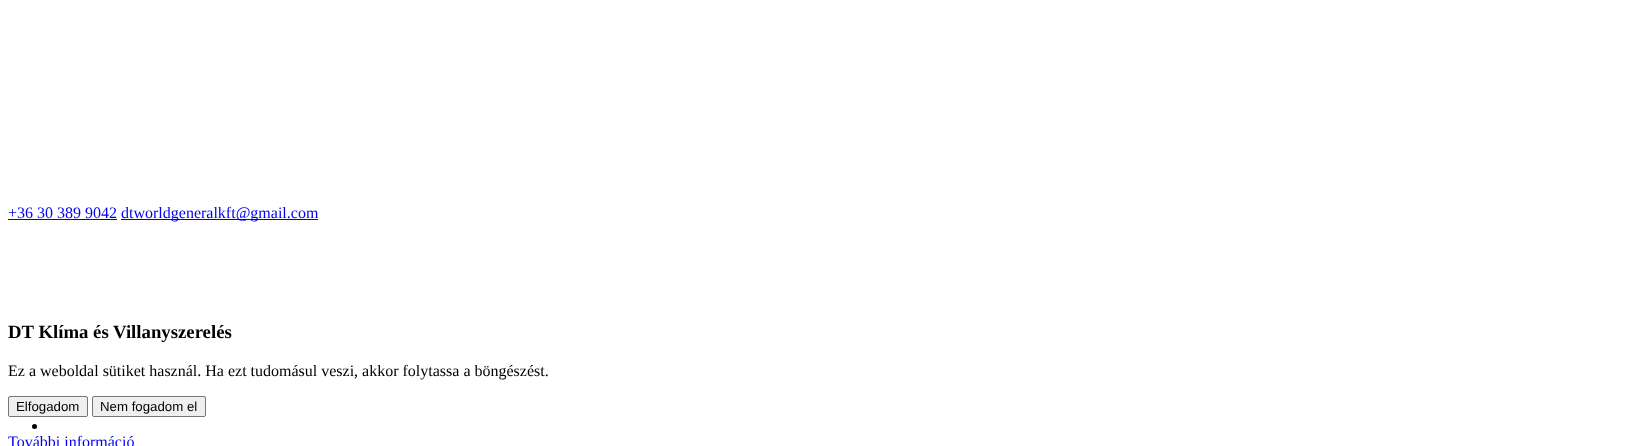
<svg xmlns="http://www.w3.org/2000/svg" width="1630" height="446">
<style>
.a{font:16px Liberation Serif;fill:#00e}
.b{font:bold 18.75px Liberation Serif;fill:#000}
.c{font:16px Liberation Serif;fill:#000}
.d{font:13.25px Liberation Sans;fill:#000}
</style>
<rect width="100%" height="100%" fill="#fff"/>
<path fill="#00e" d="M8 219h109v1H8z"/>
<path fill="#00e" d="M121 219h197v1H121z"/>
<circle fill="#000" cx="34.5" cy="426.5" r="2.5"/>
<rect fill="#efefef" stroke="#767676" x="8.5" y="396.5" width="79" height="20" rx="1.5"/>
<rect fill="#efefef" stroke="#767676" x="92.5" y="396.5" width="113" height="20" rx="1.5"/>
<text class="a" x="8" y="218">+36 30 389 9042</text>
<text class="a" x="121" y="218">dtworldgeneralkft@gmail.com</text>
<text class="b" x="8" y="338">DT Klíma és Villanyszerelés</text>
<text class="c" x="8" y="376">Ez a weboldal sütiket használ. Ha ezt tudomásul veszi, akkor folytassa a böngészést.</text>
<text class="d" x="16" y="411">Elfogadom</text>
<text class="d" x="100" y="411">Nem fogadom el</text>
<text class="a" x="8" y="447">További információ</text>
</svg>
